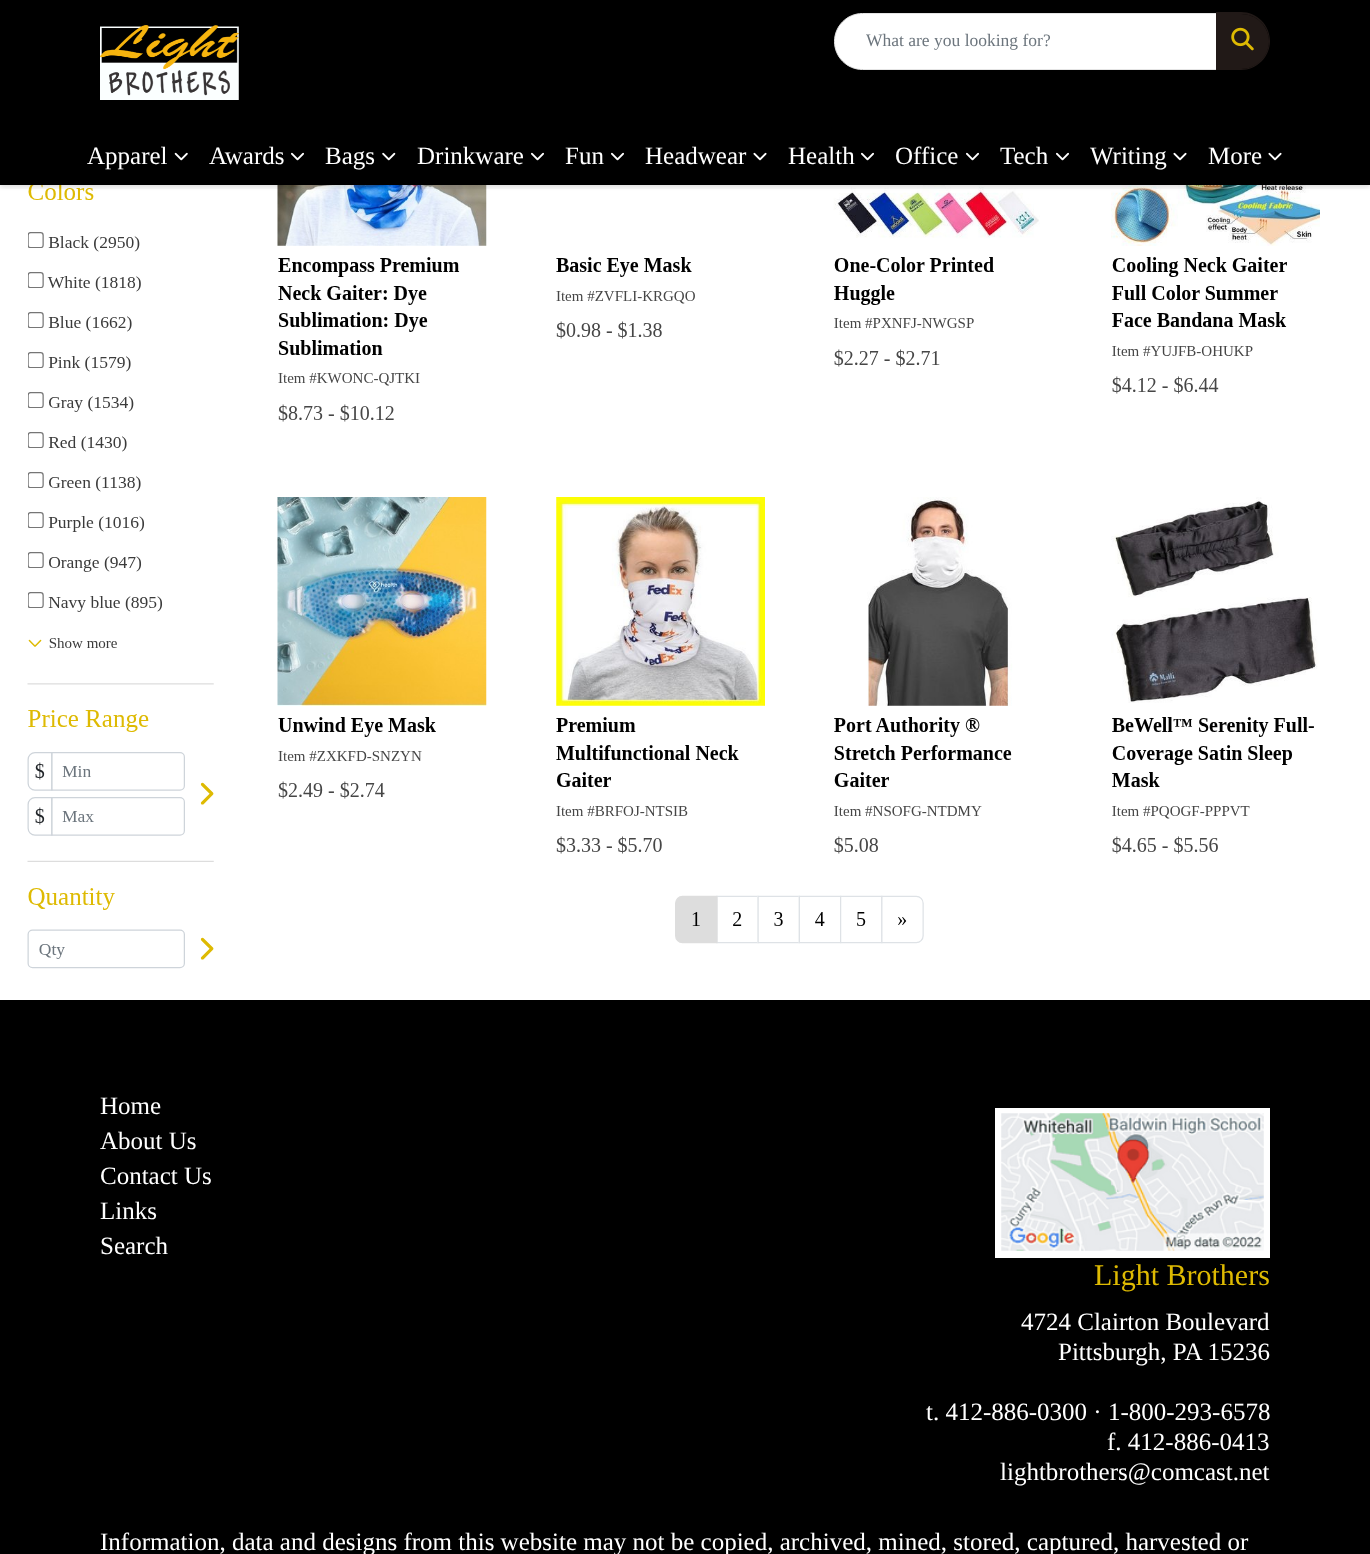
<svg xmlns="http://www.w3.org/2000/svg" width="1370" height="1554">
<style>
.a{font:17.5px Liberation Serif;fill:#6c757d}
.b{font:25px Liberation Serif;fill:#fff}
.c{font:30px Liberation Serif;fill:#deba02}
</style>
<defs>
<clipPath id="clip1"><path d="M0 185h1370v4H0z"/></clipPath>
</defs>
<rect width="100%" height="100%" fill="#fff"/>
<image href="7.png" x="27" y="185" width="1293" height="784"/>
<path fill="#0000001a" filter="blur(3px)" d="M0 0h1370v185H0z"/>
<path fill="#000" d="M0 0h1370v185H0z"/>
<image href="1.png" x="100" y="25" width="139" height="75"/>
<path fill="#fff" stroke="#e4e4e4" d="M862.5 13.5h355v56h-355c-15.5 0-28-12.5-28-28c0-15.5 12.5-28 28-28z"/>
<path fill="#211917" d="M1216 14h25.5c15 0 27.5 12.5 27.5 27.5c0 15-12.5 27.5-27.5 27.5h-25.5z"/>
<path fill="#211917" fill-rule="evenodd" d="M1216 12h25c16 0 29 13 29 29c0 16-13 29-29 29h-25zm0 2h25c15 0 28 12 28 27c0 15-13 28-28 28h-25z"/>
<image href="2.png" x="1231" y="27" width="23" height="24"/>
<g clip-path="url(#clip1)">
<path fill="#00000012" filter="blur(2.5px)" d="M0 128h1370v60H0z"/>
</g>
<image href="3.png" x="174" y="152" width="14" height="9"/>
<image href="4.png" x="291" y="152" width="13" height="9"/>
<image href="5.png" x="382" y="152" width="14" height="9"/>
<image href="4.png" x="531" y="152" width="13" height="9"/>
<image href="4.png" x="611" y="152" width="13" height="9"/>
<image href="6.png" x="753" y="152" width="14" height="9"/>
<image href="4.png" x="861" y="152" width="13" height="9"/>
<image href="4.png" x="966" y="152" width="13" height="9"/>
<image href="4.png" x="1056" y="152" width="13" height="9"/>
<image href="6.png" x="1173" y="152" width="14" height="9"/>
<image href="6.png" x="1268" y="152" width="14" height="9"/>
<path fill="#000" d="M0 1000h1370v554H0z"/>
<path fill="#fff" d="M995 1108h275v150H995z"/>
<image href="8.png" x="1001" y="1113" width="263" height="138"/>
<text class="a" x="866" y="46">What are you looking for?</text>
<text class="b" x="87" y="164">Apparel</text>
<text class="b" x="209" y="164">Awards</text>
<text class="b" x="325" y="164">Bags</text>
<text class="b" x="417" y="164">Drinkware</text>
<text class="b" x="565" y="164">Fun</text>
<text class="b" x="645" y="164">Headwear</text>
<text class="b" x="788" y="164">Health</text>
<text class="b" x="895" y="164">Office</text>
<text class="b" x="1000" y="164">Tech</text>
<text class="b" x="1090" y="164">Writing</text>
<text class="b" x="1208" y="164">More</text>
<text class="b" x="100" y="1114">Home</text>
<text class="b" x="100" y="1149">About Us</text>
<text class="b" x="100" y="1184">Contact Us</text>
<text class="b" x="100" y="1219">Links</text>
<text class="b" x="100" y="1254">Search</text>
<text class="c" x="1094" y="1285">Light Brothers</text>
<text class="b" x="1021" y="1330">4724 Clairton Boulevard</text>
<text class="b" x="1058" y="1360">Pittsburgh, PA 15236</text>
<text class="b" x="926" y="1420">t. 412-886-0300 · 1-800-293-6578</text>
<text class="b" x="1107" y="1450">f. 412-886-0413</text>
<text class="b" x="1000" y="1480">lightbrothers@comcast.net</text>
<text class="b" x="100" y="1550">Information, data and designs from this website may not be copied, archived, mined, stored, captured, harvested or</text>
</svg>
